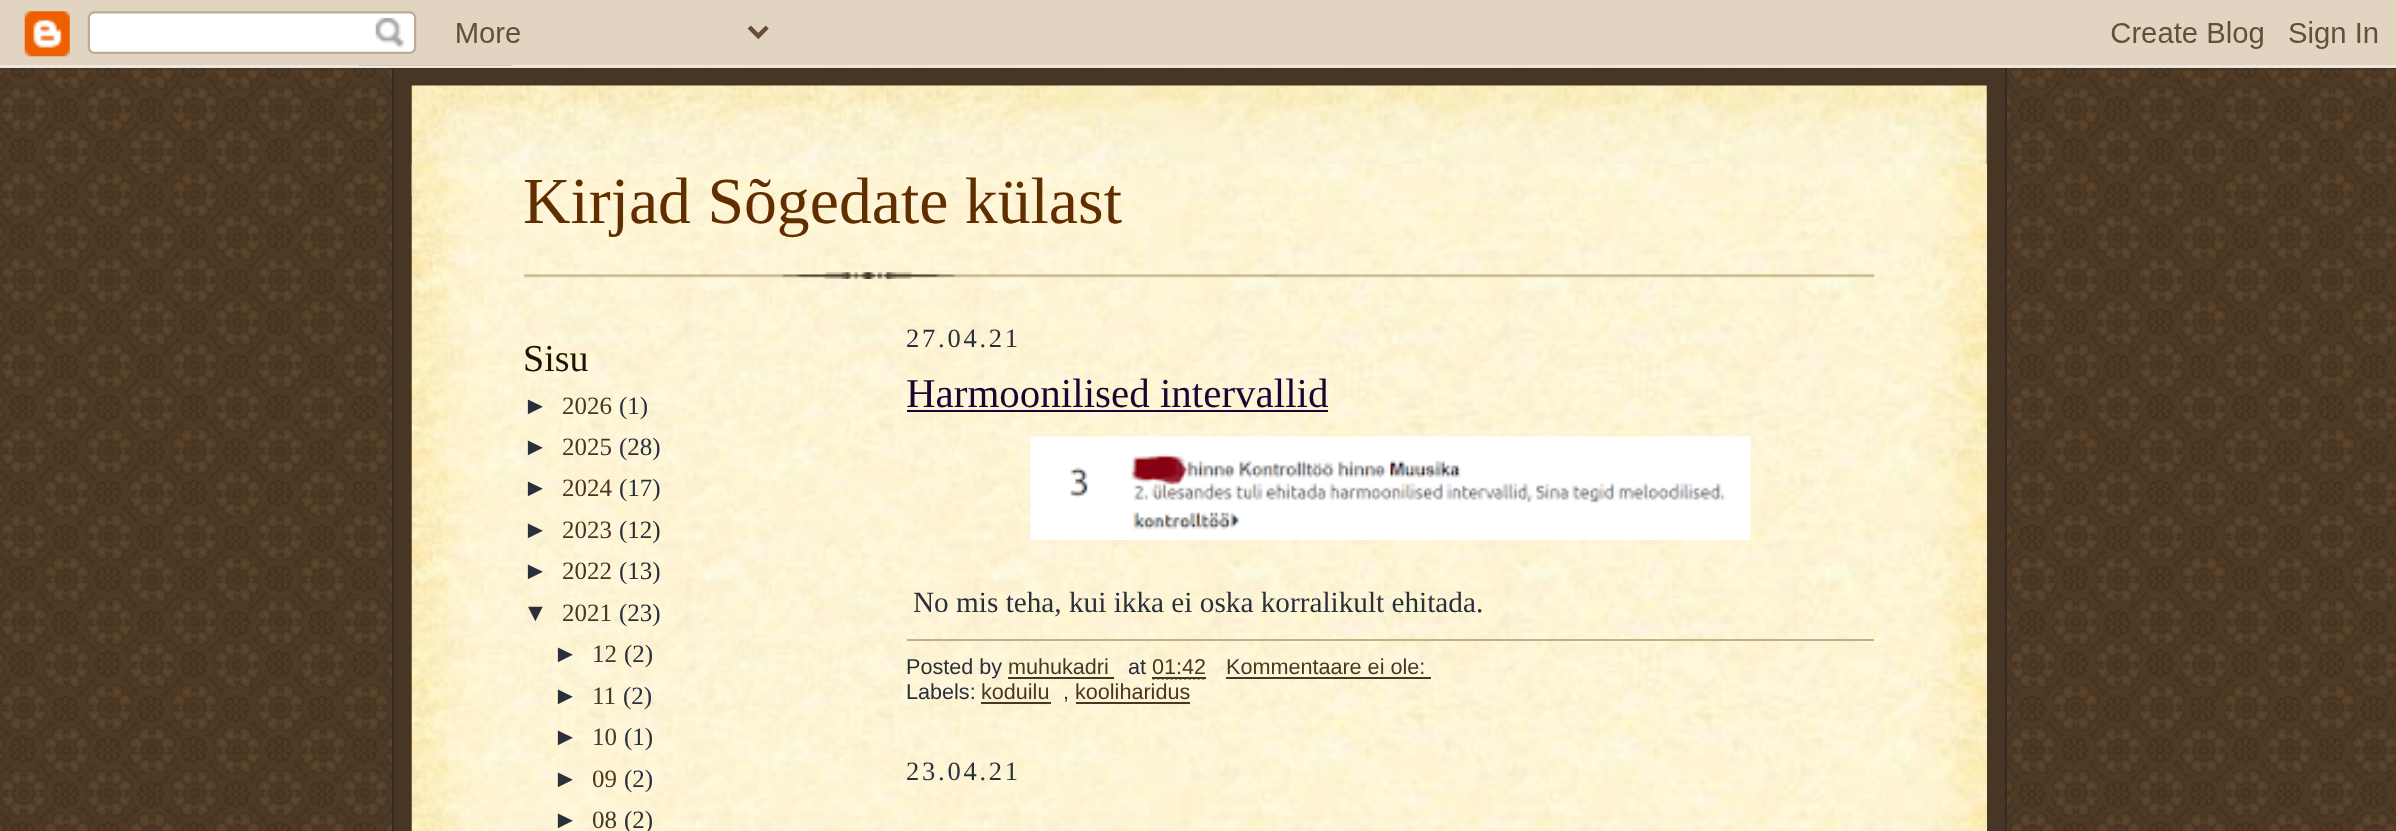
<svg xmlns="http://www.w3.org/2000/svg" width="2396" height="831">
<style>
.a{font:65.75px Liberation Serif;fill:#612e00}
.b{font:38px Liberation Serif;fill:#211104}
.c{font:25px Liberation Sans;fill:#29303b}
.d{font:25px Liberation Serif;fill:#473624}
.e{font:25px Liberation Serif;fill:#29303b}
.f{font:26.5px Liberation Serif;letter-spacing:2.75px;fill:#29303b}
.g{font:41px Liberation Serif;fill:#1b0431}
.h{font:29.25px Liberation Serif;fill:#29303b}
.i{font:21.6px Liberation Sans;fill:#29303b}
.j{font:21.6px Liberation Sans;fill:#473624}
</style>
<rect width="100%" height="100%" fill="#fff"/>
<image href="1.png" x="0" y="65" width="2396" height="766"/>
<image href="2.png" x="0" y="0" width="2396" height="68"/>
<path fill="#473624" d="M394 68h1611v763H394z"/>
<path fill="#332a24" d="M2005 68h2v763H2005z"/>
<path fill="#332a24" d="M392 68h2v763H392z"/>
<image href="3.png" x="411" y="85" width="1576" height="111"/>
<path fill="#fff3db" d="M412 164h1575v667H412z"/>
<image href="4.png" x="411" y="164" width="1576" height="667"/>
<image href="5.png" x="524" y="272" width="1351" height="7"/>
<path fill="#1b0431" d="M907 410h421v2H907z"/>
<image href="6.png" x="1030" y="436" width="721" height="104"/>
<path fill="#bfb186" d="M907 639h967v2H907z"/>
<path fill="#473624" d="M1008 677h106v2H1008z"/>
<path fill="none" stroke="#473624" stroke-width="2.2" stroke-dasharray="2.25 2.25" d="M1152.5 678.5h54"/>
<path fill="#473624" d="M1152 677h54v2H1152z"/>
<path fill="#473624" d="M1226 677h205v2H1226z"/>
<path fill="#473624" d="M981 702h70v2H981z"/>
<path fill="#473624" d="M1076 702h114v2H1076z"/>
<text class="a" x="523" y="223">Kirjad Sõgedate külast</text>
<text class="b" x="523" y="371">Sisu</text>
<text class="c" x="523" y="414">►</text>
<text class="d" x="562" y="414">2026</text>
<text class="e" x="619" y="414">(1)</text>
<text class="c" x="523" y="455">►</text>
<text class="d" x="562" y="455">2025</text>
<text class="e" x="619" y="455">(28)</text>
<text class="c" x="523" y="496">►</text>
<text class="d" x="562" y="496">2024</text>
<text class="e" x="619" y="496">(17)</text>
<text class="c" x="523" y="538">►</text>
<text class="d" x="562" y="538">2023</text>
<text class="e" x="619" y="538">(12)</text>
<text class="c" x="523" y="579">►</text>
<text class="d" x="562" y="579">2022</text>
<text class="e" x="619" y="579">(13)</text>
<text class="c" x="523" y="621">▼</text>
<text class="d" x="562" y="621">2021</text>
<text class="e" x="619" y="621">(23)</text>
<text class="c" x="553" y="662">►</text>
<text class="d" x="592" y="662">12</text>
<text class="e" x="624" y="662">(2)</text>
<text class="c" x="553" y="704">►</text>
<text class="d" x="592" y="704">11</text>
<text class="e" x="623" y="704">(2)</text>
<text class="c" x="553" y="745">►</text>
<text class="d" x="592" y="745">10</text>
<text class="e" x="624" y="745">(1)</text>
<text class="c" x="553" y="787">►</text>
<text class="d" x="592" y="787">09</text>
<text class="e" x="624" y="787">(2)</text>
<text class="c" x="553" y="828">►</text>
<text class="d" x="592" y="828">08</text>
<text class="e" x="624" y="828">(2)</text>
<text class="f" x="906" y="347">27.04.21</text>
<text class="g" x="906" y="407">Harmoonilised intervallid</text>
<text class="h" x="913" y="612">No mis teha, kui ikka ei oska korralikult ehitada.</text>
<text class="i" x="906" y="674">Posted by</text>
<text class="j" x="1008" y="674">muhukadri</text>
<text class="i" x="1128" y="674">at</text>
<text class="j" x="1152" y="674">01:42</text>
<text class="j" x="1226" y="674">Kommentaare ei ole:</text>
<text class="i" x="906" y="699">Labels:</text>
<text class="j" x="981" y="699">koduilu</text>
<text class="i" x="1063" y="699">,</text>
<text class="j" x="1075" y="699">kooliharidus</text>
<text class="f" x="906" y="780">23.04.21</text>
</svg>
